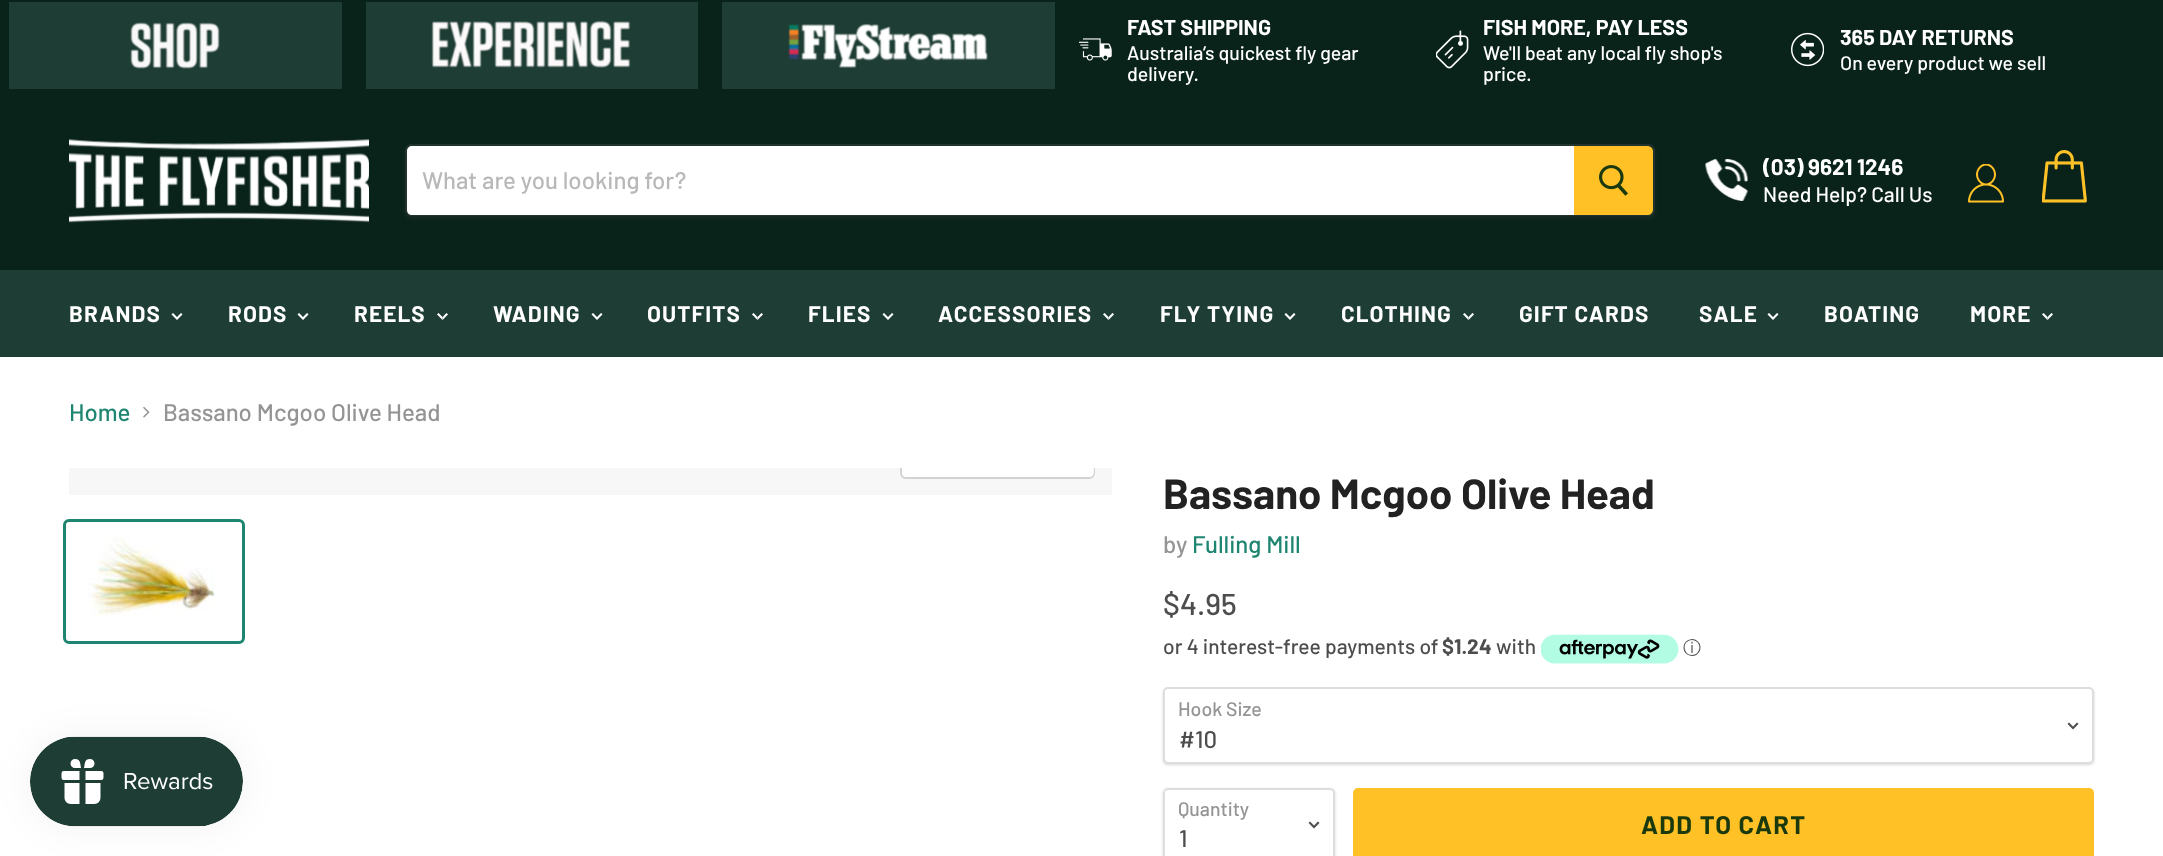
<svg xmlns="http://www.w3.org/2000/svg" width="2163" height="856">
<style>
.a{font:bold 21.5px Barlow;fill:#fff}
.b{font:500 19.5px Barlow;fill:#fff}
.c{font:500 24px Barlow;fill:#b8b8b8}
.d{font:bold 22.5px Barlow;fill:#fff}
.e{font:500 21px Barlow;fill:#fff}
.f{font:bold 22.5px Barlow;letter-spacing:1.1px;fill:#fff}
.g{font:500 24px Barlow;fill:#1e8570}
.h{font:500 24px Barlow;fill:#949494}
.i{font:bold 42px Barlow;fill:#222}
.j{font:500 30px Barlow;fill:#4d4d4d}
.k{font:500 21px Barlow;fill:#4d4d4d}
.l{font:bold 21px Barlow;fill:#4d4d4d}
.m{font:500 18px WenQuanYi Zen Hei;fill:#4d4d4d}
.n{font:500 19.5px Barlow;fill:#949494}
.o{font:500 24px Barlow;fill:#4d4d4d}
.p{font:bold 25.5px Barlow;letter-spacing:1.25px;fill:#1a390c}
</style>
<defs>
<clipPath id="clip1"><path d="M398 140h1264v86h-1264zm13 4h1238c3.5 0 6 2.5 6 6v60c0 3.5-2.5 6-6 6h-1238c-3.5 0-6-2.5-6-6v-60c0-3.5 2.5-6 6-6z" clip-rule="evenodd"/></clipPath>
<clipPath id="clip2"><path d="M69 468h1043v27H69z"/></clipPath>
<clipPath id="clip3"><path d="M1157 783h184v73h-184zm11 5h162c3 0 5 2 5 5v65c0 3-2 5-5 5h-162c-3 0-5-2-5-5v-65c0-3 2-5 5-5z" clip-rule="evenodd"/></clipPath>
</defs>
<rect width="100%" height="100%" fill="#fff"/>
<path fill="#09221a" d="M0 0h2163v270H0z"/>
<path fill="#1e3d34" d="M9 2h333v87H9z"/>
<image href="1.png" x="130" y="22" width="90" height="47"/>
<path fill="#1e3d34" d="M366 2h332v87H366z"/>
<image href="2.png" x="431" y="20" width="200" height="48"/>
<path fill="#1e3d34" d="M722 2h333v87H722z"/>
<image href="3.png" x="788" y="23" width="200" height="45"/>
<image href="4.png" x="1079" y="38" width="33" height="23"/>
<image href="5.png" x="1436" y="30" width="33" height="39"/>
<image href="6.png" x="1791" y="32" width="33" height="35"/>
<image href="7.png" x="69" y="139" width="300" height="84"/>
<g clip-path="url(#clip1)">
<rect fill="#7f7f7f1c" filter="blur(2px)" x="405" y="147" width="1250" height="72" rx="6"/>
</g>
<rect fill="none" stroke="#7f7f7f33" stroke-width="2" x="406" y="145" width="1248" height="70" rx="5"/>
<path fill="#fff" d="M412 146h1162v69h-1162c-3 0-5-2-5-5v-59c0-3 2-5 5-5z"/>
<path fill="#ffc126" stroke="#ffc126" stroke-width="2" d="M1575 147h73c2 0 4 2 4 4v59c0 2-2 4-4 4h-73z"/>
<image href="8.png" x="1599" y="165" width="29" height="31"/>
<image href="9.png" x="1705" y="159" width="43" height="42"/>
<image href="10.png" x="1968" y="164" width="36" height="39"/>
<image href="11.png" x="2042" y="150" width="45" height="53"/>
<path fill="#1e3d34" d="M0 270h2163v87H0z"/>
<image href="12.png" x="171" y="313" width="12" height="7"/>
<image href="12.png" x="297" y="313" width="12" height="7"/>
<image href="13.png" x="437" y="313" width="11" height="7"/>
<image href="12.png" x="591" y="313" width="12" height="7"/>
<image href="13.png" x="752" y="313" width="11" height="7"/>
<image href="12.png" x="882" y="313" width="12" height="7"/>
<image href="13.png" x="1103" y="313" width="11" height="7"/>
<image href="12.png" x="1284" y="313" width="12" height="7"/>
<image href="13.png" x="1463" y="313" width="11" height="7"/>
<image href="12.png" x="1767" y="313" width="12" height="7"/>
<image href="13.png" x="2042" y="313" width="11" height="7"/>
<image href="14.png" x="143" y="406" width="7" height="12"/>
<path fill="#f7f7f7" d="M69 468h1043v27H69z"/>
<g clip-path="url(#clip2)">
<rect fill="none" stroke="#d2d2d2" stroke-width="2" x="901" y="435" width="193" height="43" rx="5"/>
</g>
<path fill="#ffffffe6" d="M902 468h192v4c0 3-2 5-5 5h-182c-3 0-5-2-5-5z"/>
<rect fill="none" stroke="#1e8570" stroke-width="3" x="64.5" y="520.5" width="179" height="122" rx="4.5"/>
<image href="15.png" x="88" y="537" width="127" height="79"/>
<image href="16.png" x="1541" y="634" width="138" height="30"/>
<rect fill="#00000026" filter="blur(1.5px)" x="1163" y="689" width="931" height="76" rx="5"/>
<rect fill="#fff" stroke="#ddd" stroke-width="2" x="1164" y="688" width="929" height="75" rx="4"/>
<image href="17.png" x="2067" y="722" width="12" height="8"/>
<g clip-path="url(#clip3)">
<rect fill="#00000026" filter="blur(1.5px)" x="1163" y="789" width="172" height="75" rx="5"/>
</g>
<rect fill="none" stroke="#ddd" stroke-width="2" x="1164" y="789" width="170" height="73" rx="4"/>
<image href="17.png" x="1308" y="821" width="12" height="8"/>
<rect fill="#ffc126" stroke="#ffc126" stroke-width="2" x="1354" y="789" width="739" height="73" rx="4"/>
<rect fill="#0000000d" filter="blur(19px)" x="30" y="737" width="213" height="90" rx="45"/>
<image href="18.png" x="30" y="736" width="213" height="91"/>
<text class="a" x="1127" y="35">FAST SHIPPING</text>
<text class="b" x="1127" y="60">Australia’s quickest fly gear</text>
<text class="b" x="1127" y="81">delivery.</text>
<text class="a" x="1483" y="35">FISH MORE, PAY LESS</text>
<text class="b" x="1483" y="60">We'll beat any local fly shop's</text>
<text class="b" x="1483" y="81">price.</text>
<text class="a" x="1840" y="45">365 DAY RETURNS</text>
<text class="b" x="1840" y="70">On every product we sell</text>
<text class="c" x="422" y="189">What are you looking for?</text>
<text class="d" x="1763" y="175">(03) 9621 1246</text>
<text class="e" x="1763" y="202">Need Help? Call Us</text>
<text class="f" x="69" y="322">BRANDS</text>
<text class="f" x="228" y="322">RODS</text>
<text class="f" x="354" y="322">REELS</text>
<text class="f" x="493" y="322">WADING</text>
<text class="f" x="647" y="322">OUTFITS</text>
<text class="f" x="808" y="322">FLIES</text>
<text class="f" x="938" y="322">ACCESSORIES</text>
<text class="f" x="1160" y="322">FLY TYING</text>
<text class="f" x="1341" y="322">CLOTHING</text>
<text class="f" x="1519" y="322">GIFT CARDS</text>
<text class="f" x="1699" y="322">SALE</text>
<text class="f" x="1824" y="322">BOATING</text>
<text class="f" x="1970" y="322">MORE</text>
<text class="g" x="69" y="421">Home</text>
<text class="h" x="163" y="421">Bassano Mcgoo Olive Head</text>
<text class="i" x="1163" y="509">Bassano Mcgoo Olive Head</text>
<text class="h" x="1163" y="553">by</text>
<text class="g" x="1192" y="553">Fulling Mill</text>
<text class="j" x="1163" y="615">$4.95</text>
<text class="k" x="1163" y="654">or 4 interest-free payments of</text>
<text class="l" x="1442" y="654">$1.24</text>
<text class="k" x="1496" y="654">with</text>
<text class="m" x="1683" y="654">ⓘ</text>
<text class="n" x="1178" y="716">Hook Size</text>
<text class="o" x="1179" y="748">#10</text>
<text class="n" x="1178" y="816">Quantity</text>
<text class="o" x="1179" y="847">1</text>
<text class="p" x="1641" y="834">ADD TO CART</text>
</svg>
